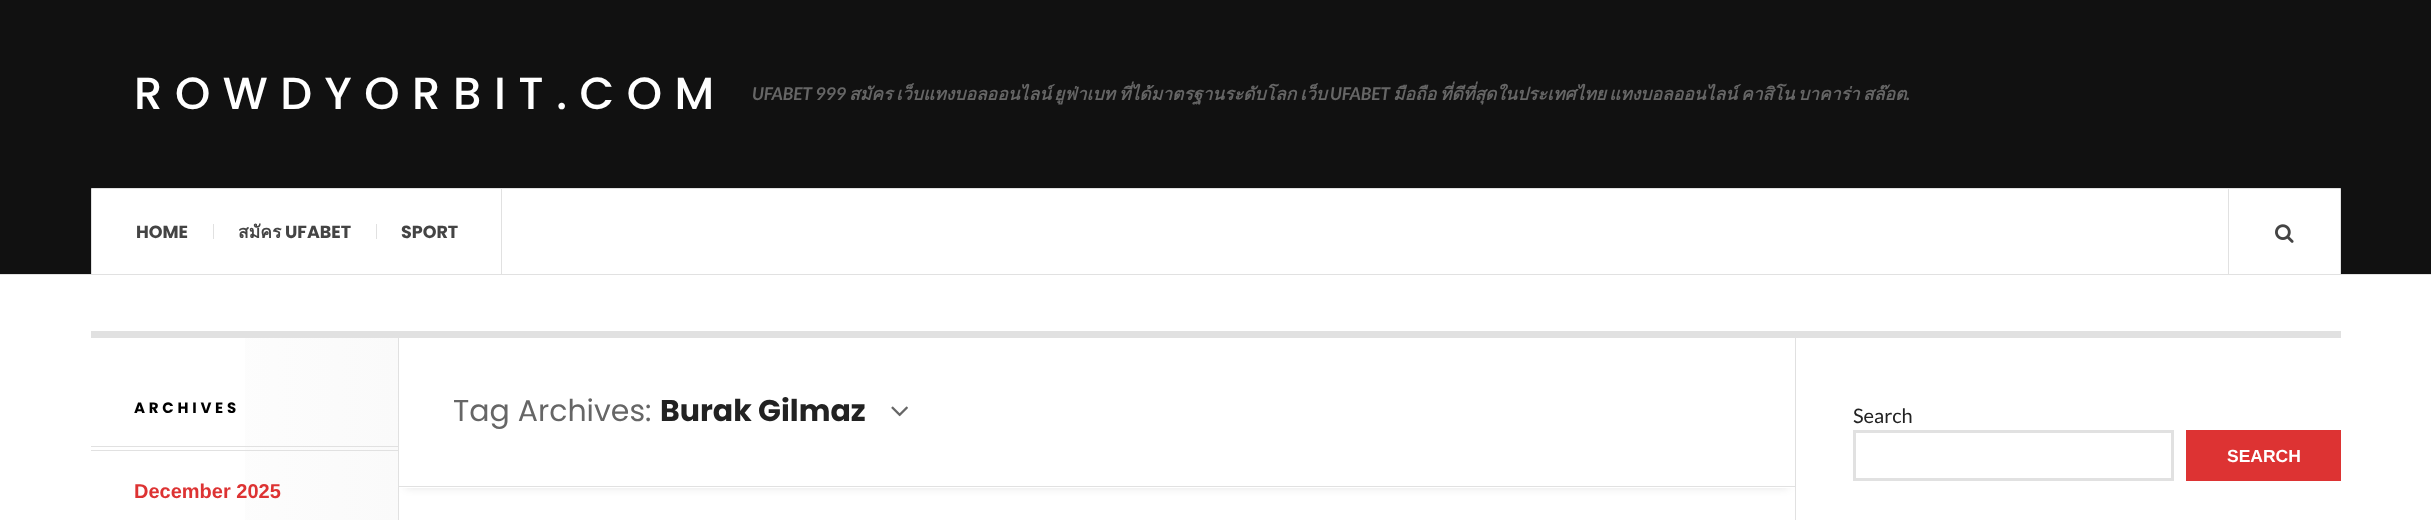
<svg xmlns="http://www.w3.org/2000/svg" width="2431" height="520">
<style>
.a{font:500 45px Poppins;letter-spacing:12.5px;fill:#fff}
.b{font:italic bold 17.5px Lato;fill:#666}
.c{font:italic bold 17.5px Loma;fill:#666}
.d{font:bold 17.5px Poppins;fill:#444}
.e{font:bold 17.5px Loma;fill:#444}
.f{font:bold 15px Poppins;letter-spacing:3.75px;fill:#000}
.g{font:bold 20px Liberation Sans;fill:#d33}
.h{font:30px Poppins;fill:#666}
.i{font:bold 30px Poppins;fill:#222}
.j{font:20px Lato;fill:#222}
.k{font:bold 17.5px Liberation Sans;fill:#fff}
</style>
<defs>
<clipPath id="clip1"><path d="M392 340h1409v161h-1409zm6-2h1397v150h-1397z" clip-rule="evenodd"/></clipPath>
<linearGradient id="g1" gradientUnits="userSpaceOnUse" x1="91" y1="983" x2="398" y2="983"><stop offset="0" stop-color="#fff"/><stop offset="1" stop-color="#fafafa"/></linearGradient>
</defs>
<rect width="100%" height="100%" fill="#fff"/>
<path fill="#111" d="M0 0h2431v274H0z"/>
<path fill="#e1e1e1" d="M0 274h2431v1H0z"/>
<path fill="#fff" stroke="#e1e1e1" d="M91.5 188.5h2249v86H91.5z"/>
<path fill="#e1e1e1" d="M501 189h1v85H501z"/>
<path fill="#e1e1e1" d="M213 224h1v15H213z"/>
<path fill="#e1e1e1" d="M376 224h1v15H376z"/>
<path fill="#e1e1e1" d="M2228 189h1v85H2228z"/>
<image href="1.png" x="2275" y="224" width="19" height="19"/>
<path fill="#e1e1e1" d="M91 331h2250v7H91z"/>
<path fill="#e1e1e1" d="M1795 338h1v182H1795z"/>
<g clip-path="url(#clip1)">
<path fill="#0000001a" filter="blur(4px)" d="M405 353h1383v135H405z"/>
</g>
<path fill="url(#g1)" d="M245 338h153v182H245z"/>
<path fill="#e1e1e1" d="M91 446h307v1H91z"/>
<path fill="#e1e1e1" d="M91 450h307v1H91z"/>
<path fill="#e1e1e1" d="M398 486h1397v1H398z"/>
<path fill="#e1e1e1" d="M93 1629h306v-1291h-1v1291z"/>
<image href="2.png" x="891" y="406" width="17" height="11"/>
<path fill="none" stroke="#e1e1e1" stroke-width="3" d="M1854.5 431.5h318v48H1854.5z"/>
<path fill="#d33" d="M2186 430h155v51H2186z"/>
<text class="a" x="134" y="109">ROWDYORBIT.COM</text>
<text class="b" x="752" y="100">UFABET 999</text>
<text class="c" x="849" y="100">สมัคร</text>
<text class="c" x="896" y="100">เว็บแทงบอลออนไลน์</text>
<text class="c" x="1054" y="100">ยูฟ่าเบท</text>
<text class="c" x="1119" y="100">ที่ได้มาตรฐานระดับโลก</text>
<text class="c" x="1300" y="100">เว็บ</text>
<text class="b" x="1330" y="100">UFABET</text>
<text class="c" x="1393" y="100">มือถือ</text>
<text class="c" x="1440" y="100">ที่ดีที่สุดในประเทศไทย</text>
<text class="c" x="1609" y="100">แทงบอลออนไลน์</text>
<text class="c" x="1741" y="100">คาสิโน</text>
<text class="c" x="1798" y="100">บาคาร่า</text>
<text class="c" x="1863" y="100">สล๊อต</text>
<text class="b" x="1906" y="100">.</text>
<text class="d" x="136" y="238">HOME</text>
<text class="e" x="238" y="238">สมัคร</text>
<text class="d" x="285" y="238">UFABET</text>
<text class="d" x="401" y="238">SPORT</text>
<text class="f" x="134" y="413">ARCHIVES</text>
<text class="g" x="134" y="498">December 2025</text>
<text class="h" x="453" y="421">Tag Archives:</text>
<text class="i" x="660" y="421">Burak Gilmaz</text>
<text class="j" x="1853" y="423">Search</text>
<text class="k" x="2227" y="462">SEARCH</text>
</svg>
